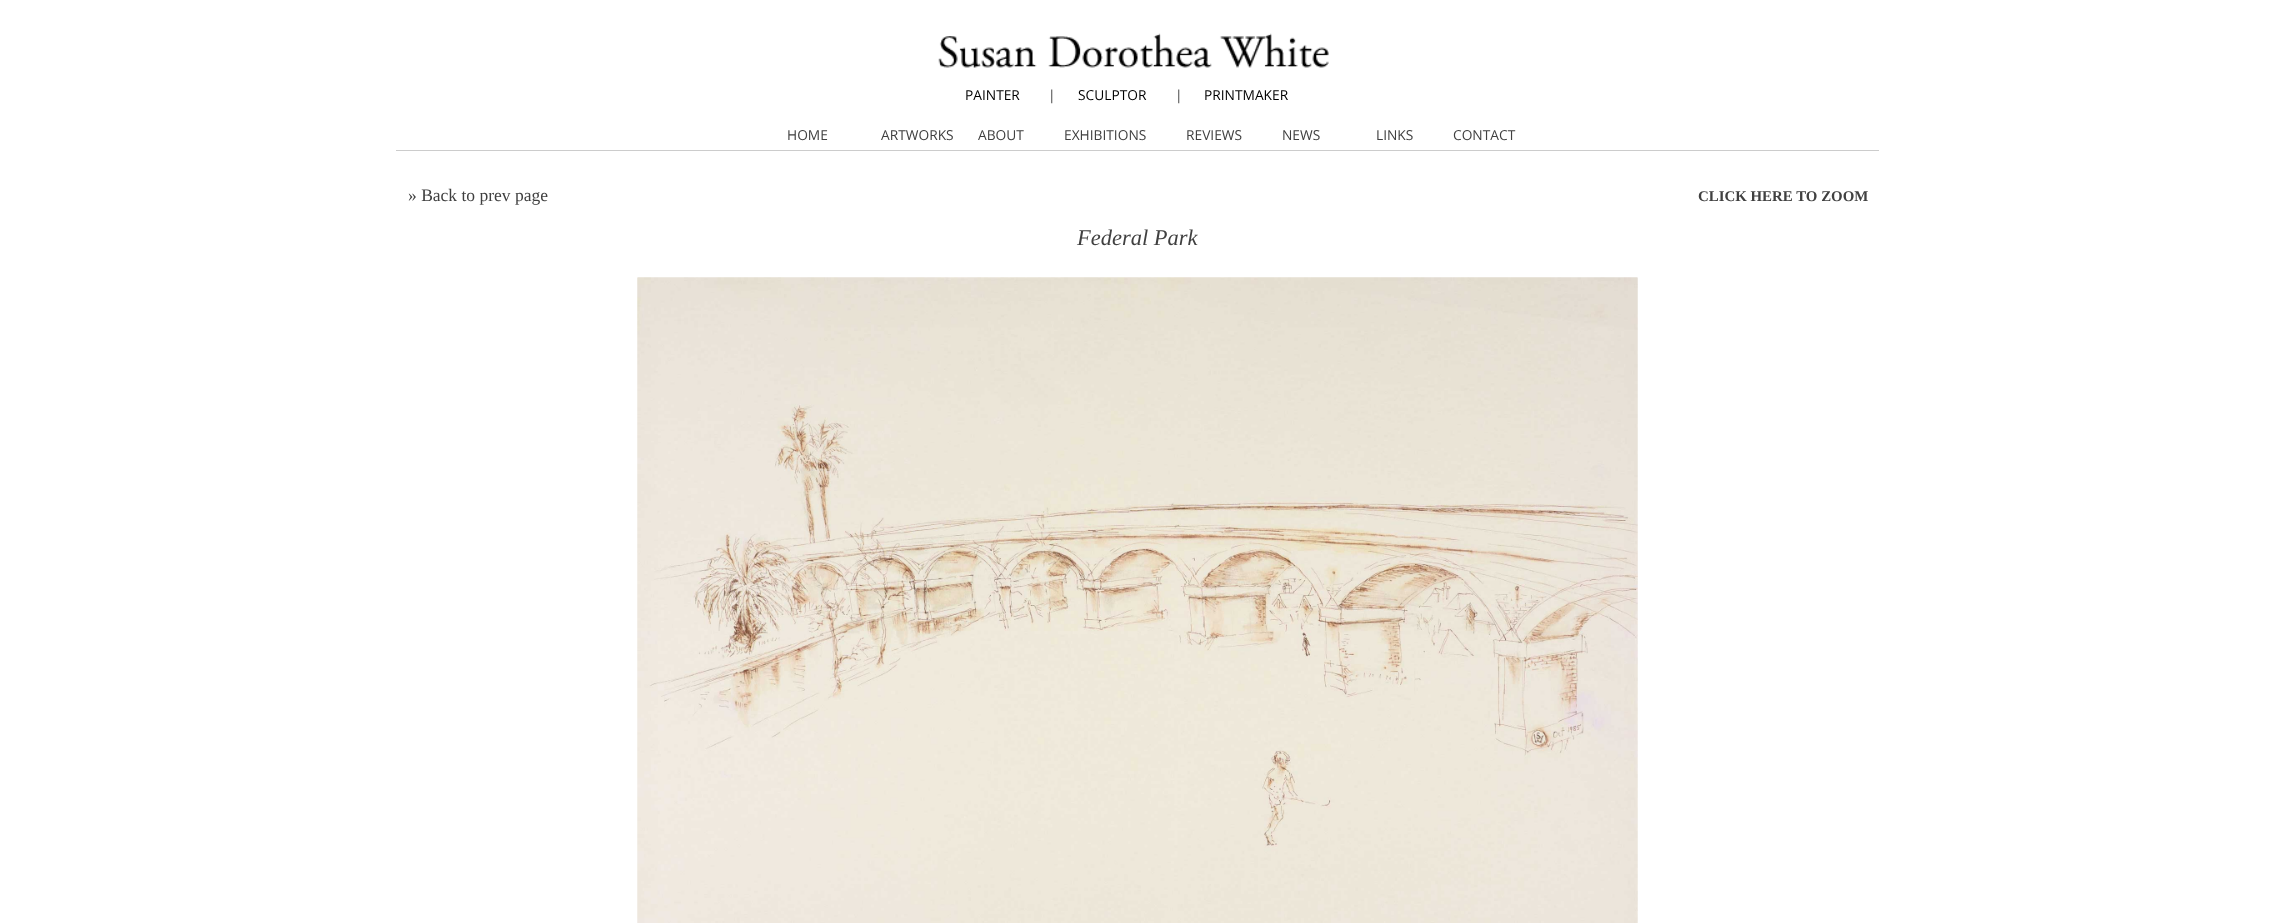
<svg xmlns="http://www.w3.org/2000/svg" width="2274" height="923">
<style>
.a{font:13.75px Open Sans;fill:#000}
.b{font:13.75px Open Sans;fill:#404040}
.c{font:17.5px Liberation Serif;fill:#404040}
.d{font:bold 14.9px Liberation Serif;fill:#404040}
.e{font:italic 22.5px Liberation Serif;fill:#404040}
</style>
<rect width="100%" height="100%" fill="#fff"/>
<path fill="#ccc" d="M396 150h1483v1H396z"/>
<image href="1.png" x="938" y="33" width="391" height="35"/>
<image href="2.png" x="637" y="277" width="1001" height="646"/>
<image href="3.png" x="637" y="277" width="1001" height="646"/>
<text class="a" x="965" y="100">PAINTER</text>
<text class="b" x="1048" y="100">|</text>
<text class="a" x="1078" y="100">SCULPTOR</text>
<text class="b" x="1175" y="100">|</text>
<text class="a" x="1204" y="100">PRINTMAKER</text>
<text class="b" x="787" y="140">HOME</text>
<text class="b" x="881" y="140">ARTWORKS</text>
<text class="b" x="978" y="140">ABOUT</text>
<text class="b" x="1064" y="140">EXHIBITIONS</text>
<text class="b" x="1186" y="140">REVIEWS</text>
<text class="b" x="1282" y="140">NEWS</text>
<text class="b" x="1376" y="140">LINKS</text>
<text class="b" x="1453" y="140">CONTACT</text>
<text class="c" x="408" y="201">» Back to prev page</text>
<text class="d" x="1698" y="201">CLICK HERE TO ZOOM</text>
<text class="e" x="1077" y="245">Federal Park</text>
</svg>
